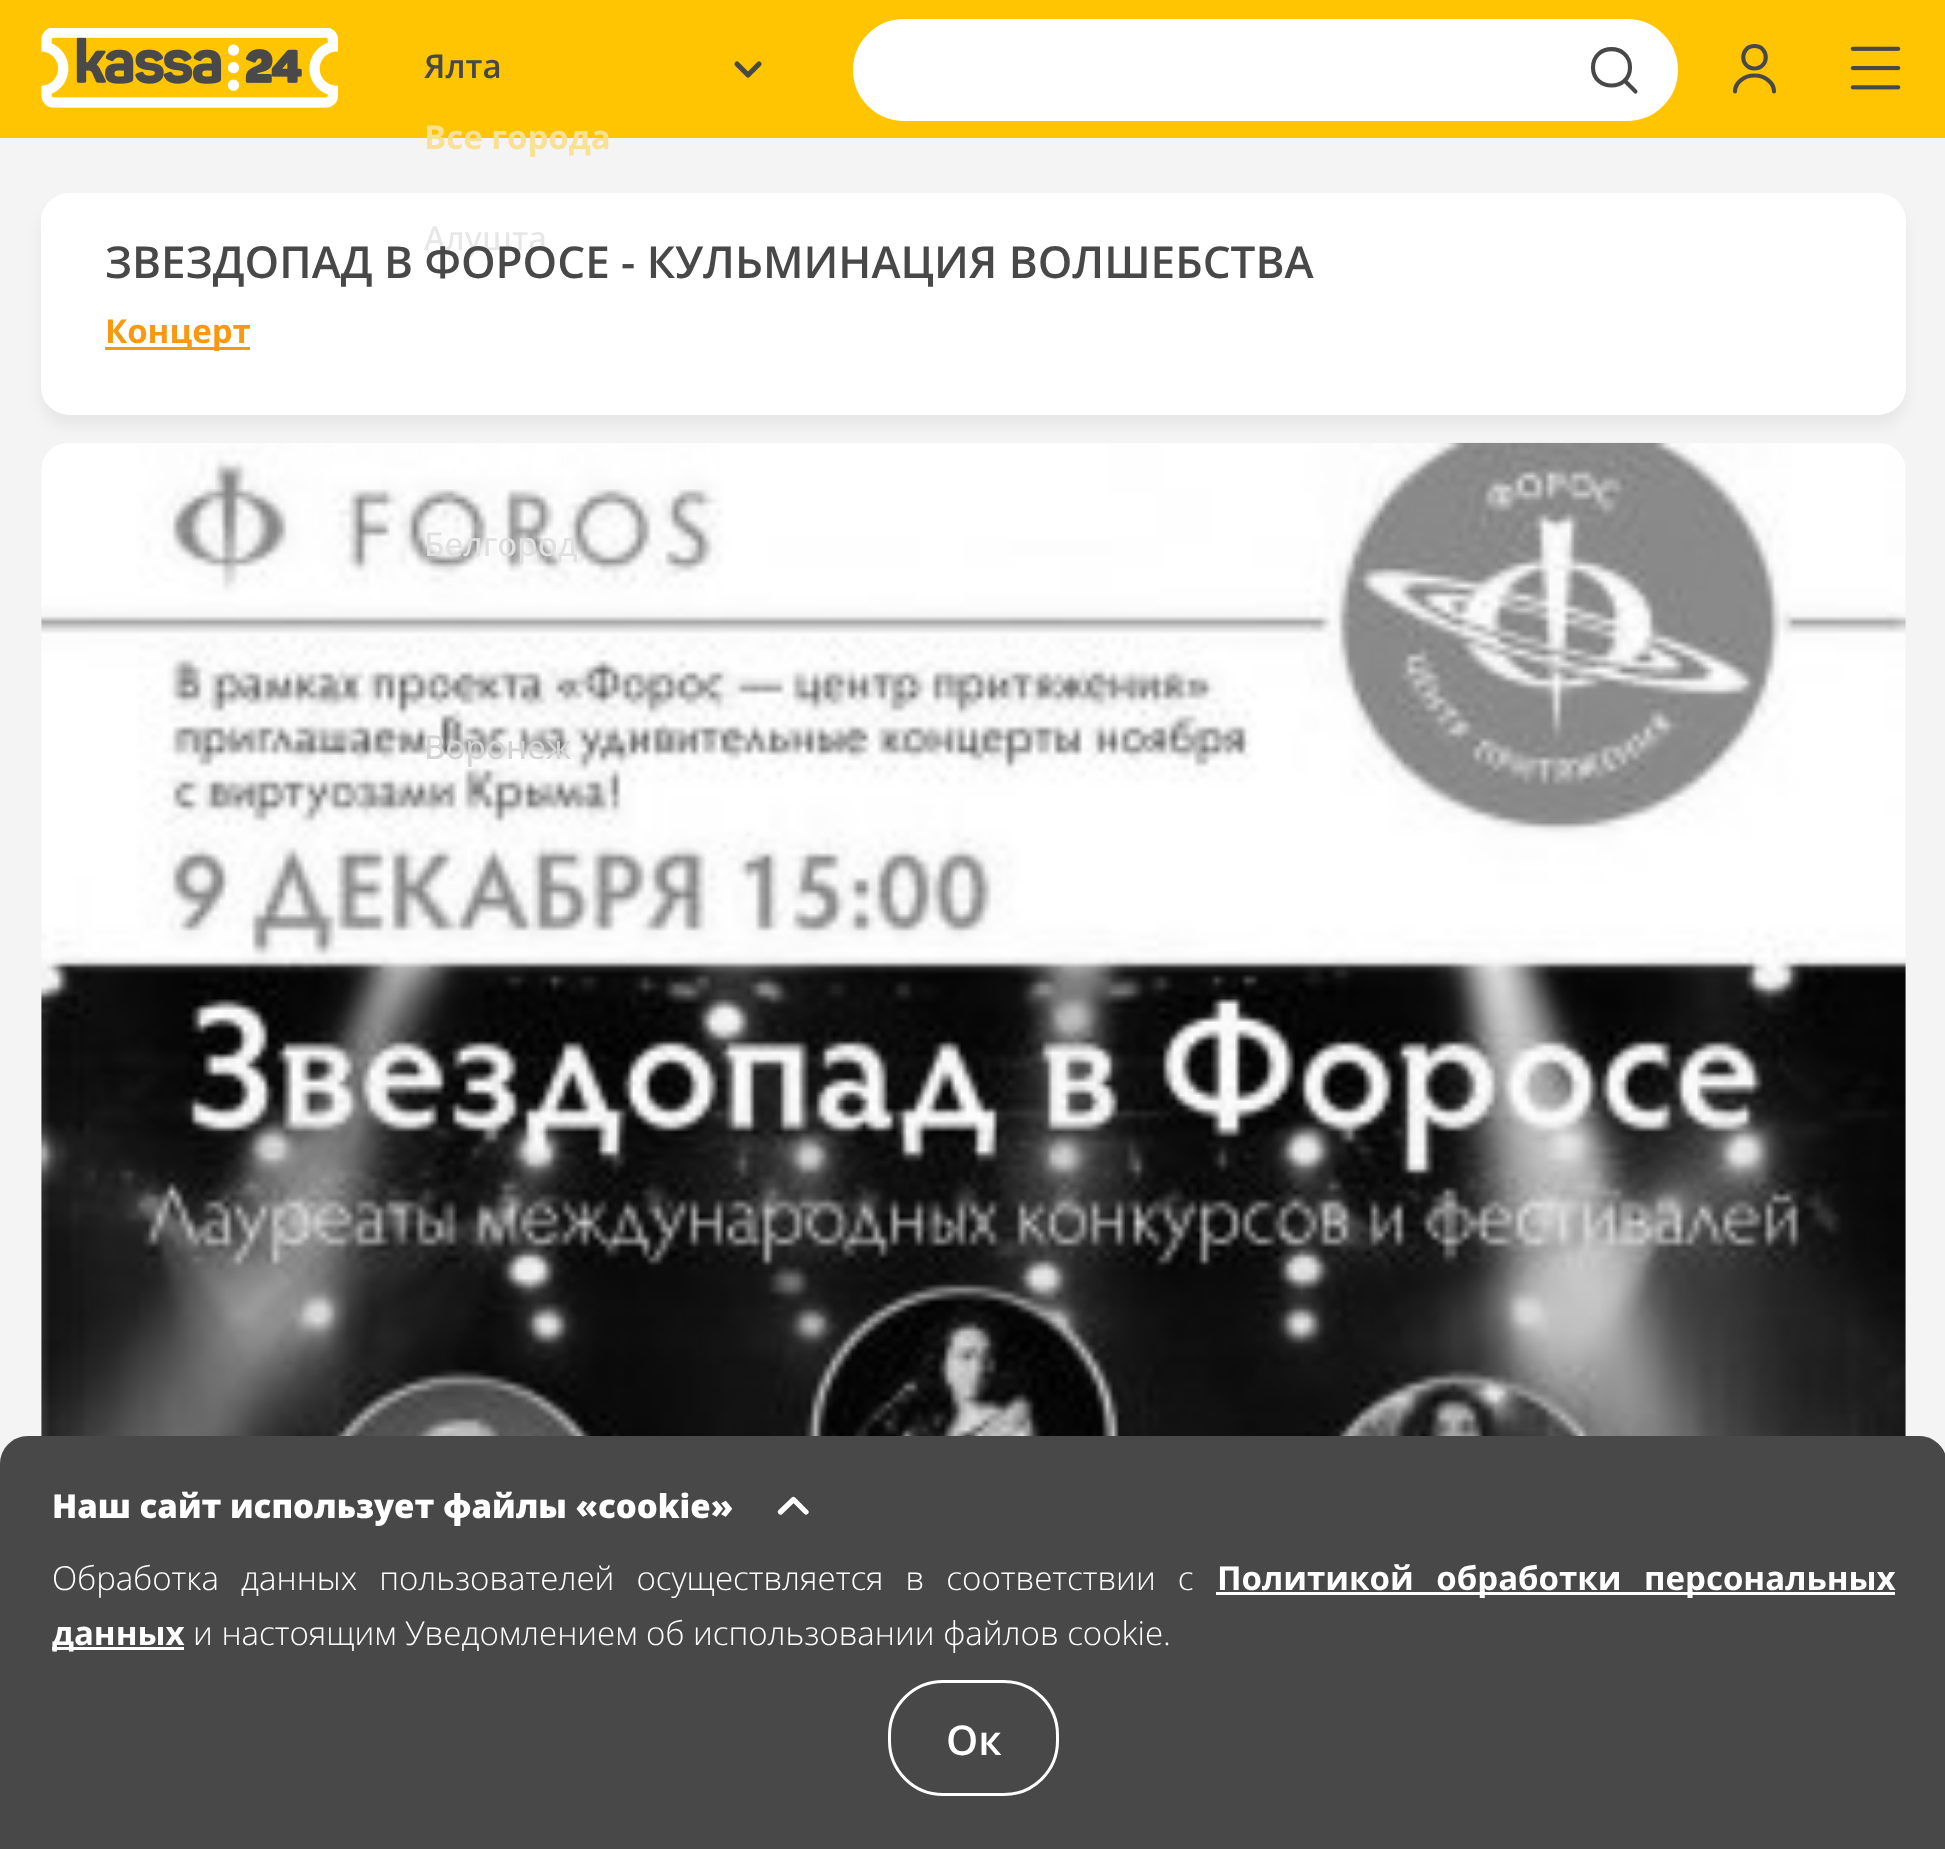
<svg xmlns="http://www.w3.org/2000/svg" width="1945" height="1849">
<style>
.a{font:600 33px Open Sans;fill:#484848}
.b{font:bold 33px Open Sans;fill:#f8e194}
.c{font:500 33px Open Sans;fill:#e7e7e7}
.d{font:500 33px Open Sans;fill:#e0e0e0}
.e{font:500 33px Open Sans;fill:#d3d3d3}
.f{font:600 44px Open Sans;fill:#484848}
.g{font:bold 33px Open Sans;fill:#fa990f}
.h{font:800 33px Open Sans;fill:#fff}
.i{font:300 33px Open Sans;fill:#fff}
.j{font:bold 33px Open Sans;fill:#fff}
.k{font:600 41px Open Sans;fill:#fff}
</style>
<rect width="100%" height="100%" fill="#f4f4f4"/>
<path fill="#ffc502" d="M0 0h1945v138H0z"/>
<image href="1.png" x="41" y="28" width="297" height="80"/>
<path fill="none" stroke="#484848" stroke-width="5.2" stroke-linecap="round" stroke-linejoin="round" d="M759 64l-11 11l-11-11"/>
<rect fill="#fff" stroke="#fff" stroke-width="3" x="854.5" y="20.5" width="822" height="99" rx="49.5"/>
<path fill="none" stroke="#484848" stroke-width="4.1" stroke-linecap="round" d="M1624.5 80.5l11 11m-5.5-24c0 24-37 24-37 0c0-24.5 37-24.5 37 0z"/>
<path fill="none" stroke="#484848" stroke-width="4.1" stroke-linecap="round" stroke-linejoin="round" d="M1754.5 68.5c15 0 15-22.5 0-22.5c-15 0-15 22.5 0 22.5zm19.5 23c0-8.5-8.5-16-19.5-16c-11 0-19.5 7.5-19.5 16"/>
<image href="2.png" x="1850" y="46" width="51" height="44"/>
<rect fill="#0000000d" filter="blur(7px)" x="41" y="204" width="1865" height="222" rx="28"/>
<rect fill="#fff" x="41" y="193" width="1865" height="222" rx="28"/>
<path fill="#fa990f" d="M105 347h145v3H105z"/>
<image href="3.png" x="41" y="442" width="1865" height="994"/>
<path fill="#484848" d="M28 1436h1891c15.5 0 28 12.5 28 28v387h-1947v-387c0-15.5 12.5-28 28-28z"/>
<path fill="none" stroke="#fff" stroke-width="5.3" stroke-linecap="round" stroke-linejoin="round" d="M780.5 1512l13-12.5l12.5 12.5"/>
<path fill="#fff" d="M1216 1592h679v3H1216z"/>
<path fill="#fff" d="M52 1647h132v3H52z"/>
<rect fill="none" stroke="#fff" stroke-width="3" x="889.5" y="1681.5" width="168" height="113" rx="53.5"/>
<text class="a" x="424" y="78">Ялта</text>
<text class="b" x="424" y="149">Все города</text>
<text class="c" x="424" y="250">Алушта</text>
<text class="d" x="424" y="556">Белгород</text>
<text class="e" x="424" y="759">Воронеж</text>
<text class="f" x="105" y="278">ЗВЕЗДОПАД В ФОРОСЕ - КУЛЬМИНАЦИЯ ВОЛШЕБСТВА</text>
<text class="g" x="105" y="343">Концерт</text>
<text class="h" x="52" y="1518">Наш сайт использует файлы «cookie»</text>
<text class="i" x="52" y="1590" word-spacing="13.5">Обработка данных пользователей осуществляется в соответствии с</text>
<text class="j" x="1217" y="1590" word-spacing="14">Политикой обработки персональных</text>
<text class="j" x="52" y="1645">данных</text>
<text class="i" x="193" y="1645">и настоящим Уведомлением об использовании файлов cookie.</text>
<text class="k" x="946" y="1755">Ок</text>
</svg>
